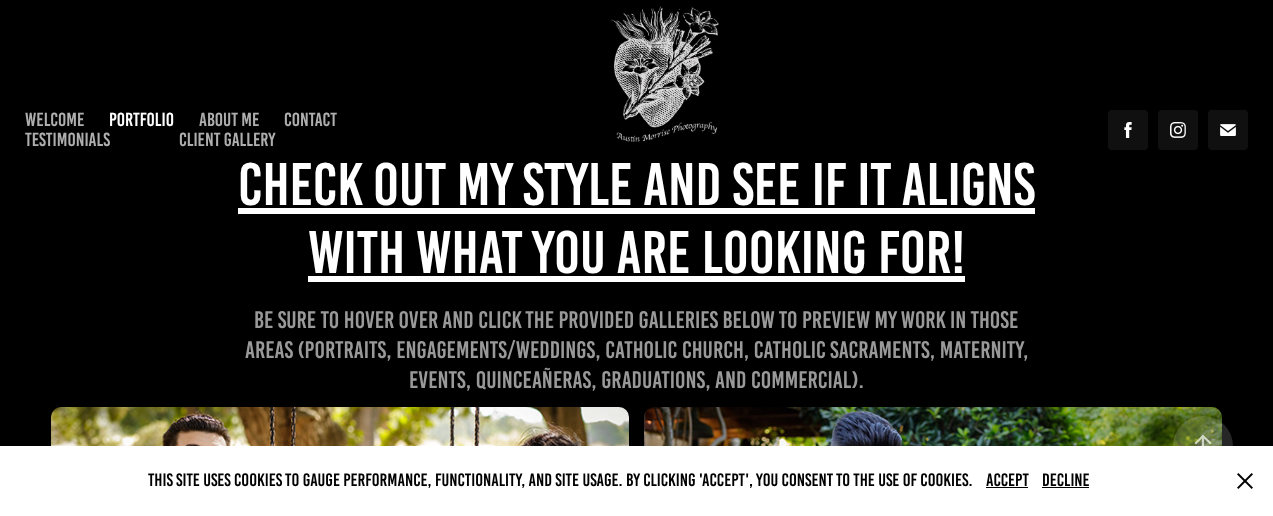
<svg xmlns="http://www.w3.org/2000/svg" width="1273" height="516">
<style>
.a{font:19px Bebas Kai;fill:#aeaeae}
.b{font:19px Bebas Kai;fill:#fff}
.c{font:60px Bebas Kai;fill:#fff}
.d{font:24px Bebas Kai;fill:#999}
.e{font:18px Bebas Kai;fill:#000}
</style>
<rect width="100%" height="100%" fill="#000"/>
<image href="1.png" x="611" y="6" width="108" height="136"/>
<rect fill="#101010" x="1108" y="110" width="40" height="40" rx="4"/>
<image href="2.png" x="1124" y="122" width="8" height="16"/>
<rect fill="#101010" x="1158" y="110" width="40" height="40" rx="4"/>
<image href="3.png" x="1170" y="122" width="16" height="16"/>
<rect fill="#101010" x="1208" y="110" width="40" height="40" rx="4"/>
<image href="4.png" x="1220" y="124" width="16" height="12"/>
<path fill="#fff" d="M238 208h797v6H238z"/>
<path fill="#fff" d="M308 276h657v6H308z"/>
<image href="5.png" x="51" y="407" width="578" height="39"/>
<image href="6.png" x="644" y="407" width="578" height="39"/>
<circle fill="#ffffff26" cx="1203" cy="446" r="30"/>
<image href="7.png" x="1194" y="435" width="18" height="11"/>
<path fill="#fff" d="M0 446h1273v70H0z"/>
<path fill="#000" d="M986 487h42v1H986z"/>
<path fill="#000" d="M1042 487h47v1H1042z"/>
<image href="8.png" x="1237" y="473" width="16" height="16"/>
<text class="a" x="25" y="126">WELCOME</text>
<text class="b" x="109" y="126">PORTFOLIO</text>
<text class="a" x="199" y="126">ABOUT ME</text>
<text class="a" x="284" y="126">CONTACT</text>
<text class="a" x="25" y="146">TESTIMONIALS</text>
<text class="a" x="179" y="146">CLIENT GALLERY</text>
<text class="c" x="238" y="205">Check out my style and see if it aligns</text>
<text class="c" x="308" y="273">with what you are looking for!</text>
<text class="d" x="254" y="328">Be sure to hover over and click the provided galleries below to preview my work in those</text>
<text class="d" x="245" y="358">areas (Portraits, Engagements/weddings, Catholic Church, Catholic Sacraments, Maternity,</text>
<text class="d" x="409" y="388">Events, Quinceañeras, Graduations, and Commercial).</text>
<text class="e" x="148" y="486">This site uses cookies to gauge performance, functionality, and site usage. By clicking 'Accept', you consent to the use of cookies.</text>
<text class="e" x="986" y="486">Accept</text>
<text class="e" x="1042" y="486">Decline</text>
</svg>
